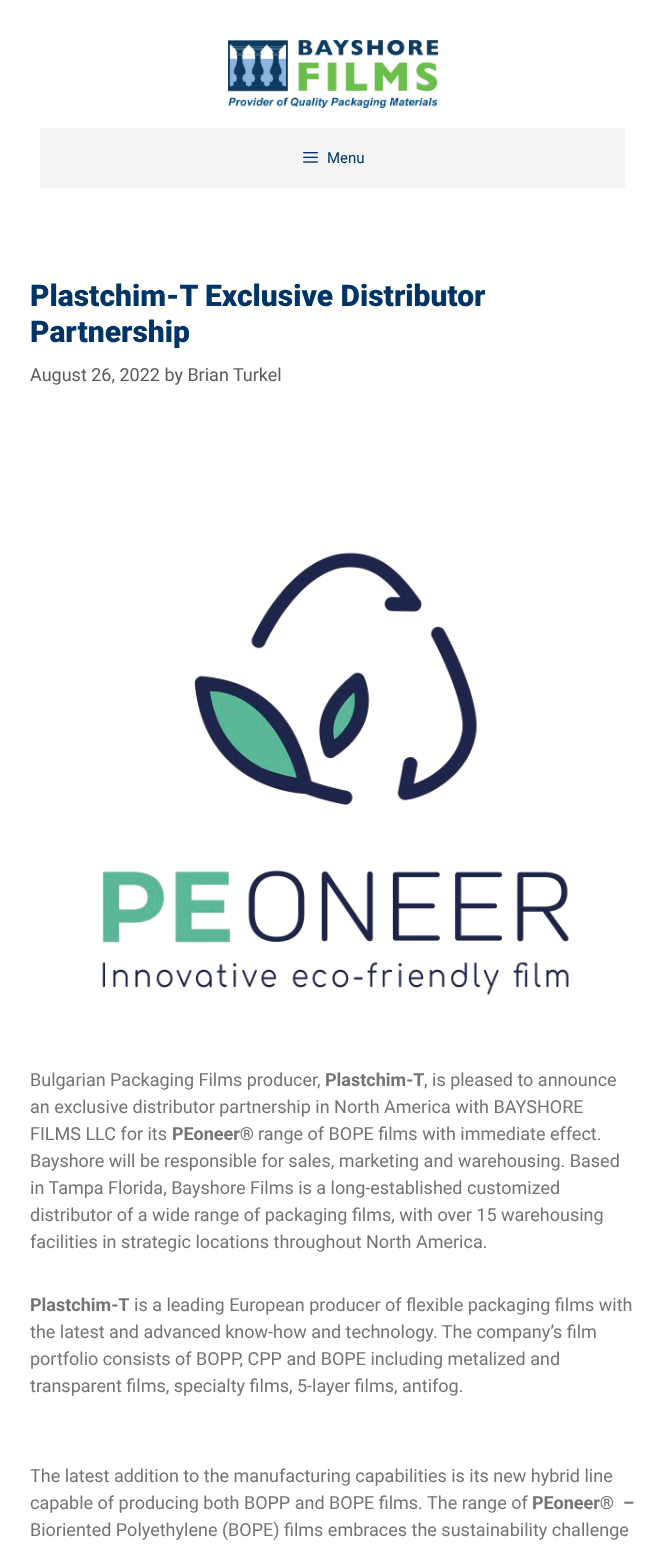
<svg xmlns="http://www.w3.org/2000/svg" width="665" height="1551">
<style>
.a{font:15px Roboto;fill:#036}
.b{font:900 30px Roboto;fill:#036}
.c{font:18px Roboto;fill:#595959}
.d{font:18px Roboto;fill:#737373}
.e{font:bold 18px Roboto;fill:#737373}
</style>
<rect width="100%" height="100%" fill="#fff"/>
<image href="1.png" x="228" y="40" width="210" height="68"/>
<path fill="#f4f4f4" d="M40 128h585v60H40z"/>
<image href="2.png" x="303" y="152" width="15" height="11"/>
<image href="3.png" x="102" y="552" width="467" height="444"/>
<text class="a" x="327" y="163">Menu</text>
<text class="b" x="30" y="306">Plastchim-T Exclusive Distributor</text>
<text class="b" x="30" y="342">Partnership</text>
<text class="c" x="30" y="381">August 26, 2022 by Brian Turkel</text>
<text class="d" x="30" y="1086">Bulgarian Packaging Films producer,</text>
<text class="e" x="325" y="1086">Plastchim-T</text>
<text class="d" x="424" y="1086">, is pleased to announce</text>
<text class="d" x="30" y="1113">an exclusive distributor partnership in North America with BAYSHORE</text>
<text class="d" x="30" y="1140">FILMS LLC for its</text>
<text class="e" x="172" y="1140">PEoneer®</text>
<text class="d" x="258" y="1140">range of BOPE films with immediate effect.</text>
<text class="d" x="30" y="1167">Bayshore will be responsible for sales, marketing and warehousing. Based</text>
<text class="d" x="30" y="1194">in Tampa Florida, Bayshore Films is a long-established customized</text>
<text class="d" x="30" y="1221">distributor of a wide range of packaging films, with over 15 warehousing</text>
<text class="d" x="30" y="1248">facilities in strategic locations throughout North America.</text>
<text class="e" x="30" y="1311">Plastchim-T</text>
<text class="d" x="134" y="1311">is a leading European producer of flexible packaging films with</text>
<text class="d" x="30" y="1338">the latest and advanced know-how and technology. The company’s film</text>
<text class="d" x="30" y="1365">portfolio consists of BOPP, CPP and BOPE including metalized and</text>
<text class="d" x="30" y="1392">transparent films, specialty films, 5-layer films, antifog.</text>
<text class="d" x="30" y="1482">The latest addition to the manufacturing capabilities is its new hybrid line</text>
<text class="d" x="30" y="1509">capable of producing both BOPP and BOPE films. The range of</text>
<text class="e" xml:space="preserve" x="532" y="1509">PEoneer®  –</text>
<text class="d" x="30" y="1536">Bioriented Polyethylene (BOPE) films embraces the sustainability challenge</text>
</svg>
